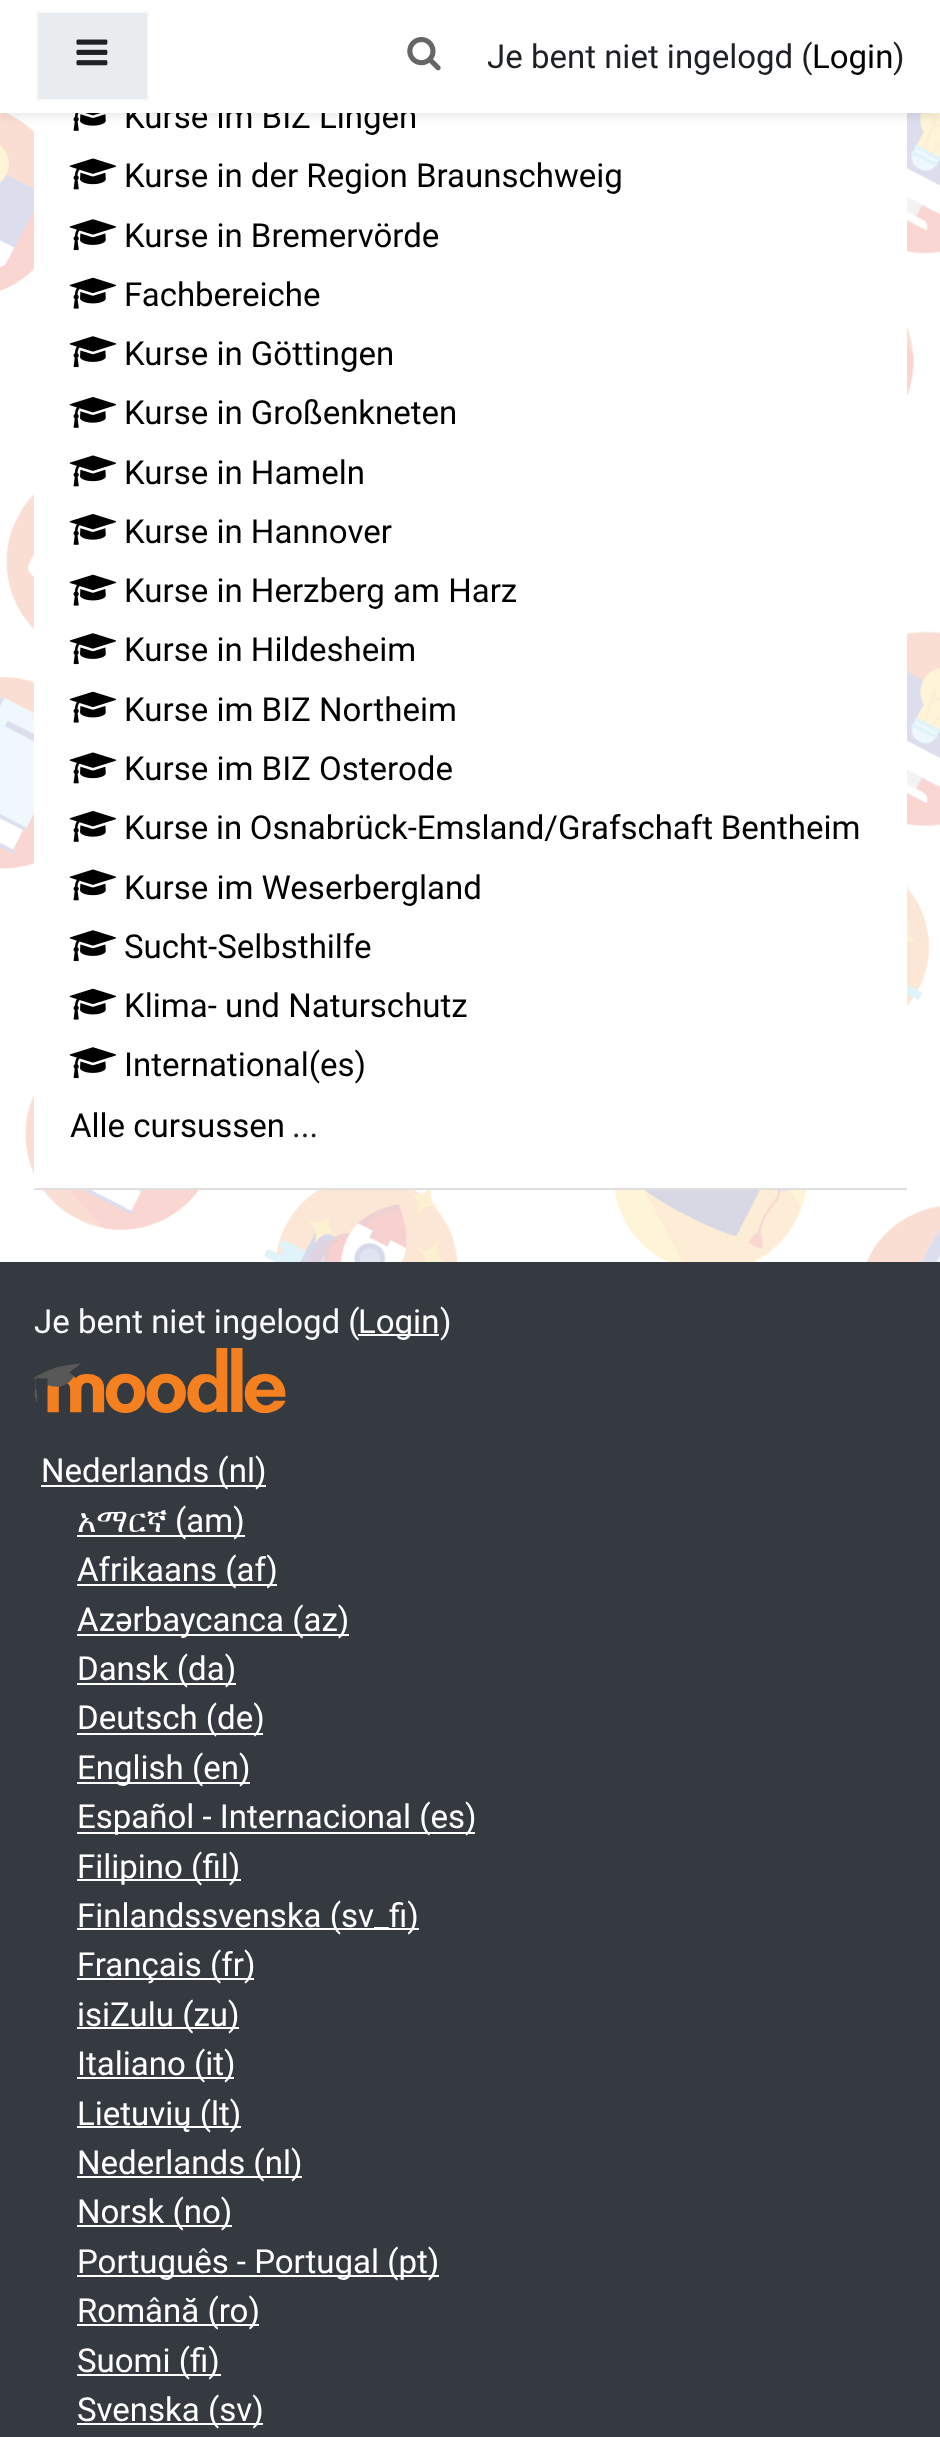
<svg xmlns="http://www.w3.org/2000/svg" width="940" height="2437">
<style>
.a{font:33px Roboto;fill:#000}
.b{font:33px Roboto;fill:#1d2125}
.c{font:33px Roboto;fill:#f8f9fa}
.d{font:33px Roboto;fill:#fff}
.e{font:33px FreeSerif;fill:#fff}
</style>
<rect width="100%" height="100%" fill="#fff"/>
<image href="1.png" x="0" y="113" width="940" height="1149"/>
<path fill="#fff" d="M34 113h873v1075H34z"/>
<image href="4.png" x="73" y="113" width="33" height="18"/>
<path fill="#00000014" filter="blur(4.5px)" d="M0 5h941v112H0z"/>
<path fill="#dfdfdf" d="M34 1188h873v2H34z"/>
<image href="5.png" x="69" y="158" width="47" height="32"/>
<image href="6.png" x="69" y="219" width="47" height="32"/>
<image href="7.png" x="69" y="277" width="47" height="32"/>
<image href="6.png" x="69" y="336" width="47" height="32"/>
<image href="8.png" x="69" y="397" width="47" height="31"/>
<image href="5.png" x="69" y="455" width="47" height="32"/>
<image href="8.png" x="69" y="514" width="47" height="31"/>
<image href="7.png" x="69" y="574" width="47" height="32"/>
<image href="6.png" x="69" y="633" width="47" height="32"/>
<image href="7.png" x="69" y="691" width="47" height="32"/>
<image href="5.png" x="69" y="752" width="47" height="32"/>
<image href="8.png" x="69" y="811" width="47" height="31"/>
<image href="5.png" x="69" y="869" width="47" height="32"/>
<image href="6.png" x="69" y="930" width="47" height="32"/>
<image href="7.png" x="69" y="988" width="47" height="32"/>
<image href="6.png" x="69" y="1047" width="47" height="32"/>
<path fill="#343a40" d="M0 1262h940v1175H0z"/>
<image href="9.png" x="34" y="1348" width="252" height="65"/>
<path fill="#fff" d="M41 1485h225v2H41z"/>
<path fill="#fff" d="M77 1535h168v2H77z"/>
<path fill="#fff" d="M77 1584h200v2H77z"/>
<path fill="#fff" d="M77 1634h272v2H77z"/>
<path fill="#fff" d="M77 1683h159v2H77z"/>
<path fill="#fff" d="M77 1733h186v2H77z"/>
<path fill="#fff" d="M77 1782h173v2H77z"/>
<path fill="#fff" d="M77 1832h398v2H77z"/>
<path fill="#fff" d="M77 1879h164v2H77z"/>
<path fill="#fff" d="M77 1928h342v2H77z"/>
<path fill="#fff" d="M77 1978h177v2H77z"/>
<path fill="#fff" d="M77 2027h162v2H77z"/>
<path fill="#fff" d="M77 2077h157v2H77z"/>
<path fill="#fff" d="M77 2126h164v2H77z"/>
<path fill="#fff" d="M77 2176h225v2H77z"/>
<path fill="#fff" d="M77 2225h155v2H77z"/>
<path fill="#fff" d="M77 2275h362v2H77z"/>
<path fill="#fff" d="M77 2324h182v2H77z"/>
<path fill="#fff" d="M77 2374h144v2H77z"/>
<path fill="#fff" d="M77 2423h186v2H77z"/>
<text class="a" x="124" y="128">Kurse im BIZ Lingen</text>
<path fill="#fff" d="M0 0h940v113H0z"/>
<text class="b" x="893" y="68">)</text>
<text class="a" x="812" y="68">Login</text>
<text class="b" x="487" y="68">Je bent niet ingelogd (</text>
<image href="3.png" x="407" y="37" width="34" height="34"/>
<path fill="#e9ecef" stroke="#f8f9fa" stroke-width="2" d="M37 12h111v88H37z"/>
<image href="2.png" x="76" y="39" width="32" height="27"/>
<text class="a" x="124" y="187">Kurse in der Region Braunschweig</text>
<text class="a" x="124" y="247">Kurse in Bremervörde</text>
<text class="a" x="124" y="306">Fachbereiche</text>
<text class="a" x="124" y="365">Kurse in Göttingen</text>
<text class="a" x="124" y="424">Kurse in Großenkneten</text>
<text class="a" x="124" y="484">Kurse in Hameln</text>
<text class="a" x="124" y="543">Kurse in Hannover</text>
<text class="a" x="124" y="602">Kurse in Herzberg am Harz</text>
<text class="a" x="124" y="661">Kurse in Hildesheim</text>
<text class="a" x="124" y="721">Kurse im BIZ Northeim</text>
<text class="a" x="124" y="780">Kurse im BIZ Osterode</text>
<text class="a" x="124" y="839" word-spacing="-0.5">Kurse in Osnabrück-Emsland/Grafschaft Bentheim</text>
<text class="a" x="124" y="899">Kurse im Weserbergland</text>
<text class="a" x="124" y="958">Sucht-Selbsthilfe</text>
<text class="a" x="124" y="1017">Klima- und Naturschutz</text>
<text class="a" x="124" y="1076">International(es)</text>
<text class="a" x="70" y="1137">Alle cursussen</text>
<text class="b" x="292" y="1137">...</text>
<text class="c" x="34" y="1333">Je bent niet ingelogd (</text>
<path fill="#fff" d="M358 1334h81v2H358z"/>
<text class="d" x="358" y="1333">Login</text>
<text class="c" x="440" y="1333">)</text>
<text class="d" x="41" y="1482">Nederlands (nl)</text>
<text class="e" x="77" y="1532">አማርኛ </text>
<text class="d" x="175" y="1532">(am)</text>
<text class="d" x="77" y="1581">Afrikaans (af)</text>
<text class="d" x="77" y="1631">Azərbaycanca (az)</text>
<text class="d" x="77" y="1680">Dansk (da)</text>
<text class="d" x="77" y="1729">Deutsch (de)</text>
<text class="d" x="77" y="1779">English (en)</text>
<text class="d" x="77" y="1828">Español - Internacional (es)</text>
<text class="d" x="77" y="1878">Filipino (fil)</text>
<text class="d" x="77" y="1927">Finlandssvenska (sv_fi)</text>
<text class="d" x="77" y="1976">Français (fr)</text>
<text class="d" x="77" y="2026">isiZulu (zu)</text>
<text class="d" x="77" y="2075">Italiano (it)</text>
<text class="d" x="77" y="2125">Lietuvių (lt)</text>
<text class="d" x="77" y="2174">Nederlands (nl)</text>
<text class="d" x="77" y="2223">Norsk (no)</text>
<text class="d" x="77" y="2273">Português - Portugal (pt)</text>
<text class="d" x="77" y="2322">Română (ro)</text>
<text class="d" x="77" y="2372">Suomi (fi)</text>
<text class="d" x="77" y="2421">Svenska (sv)</text>
</svg>
